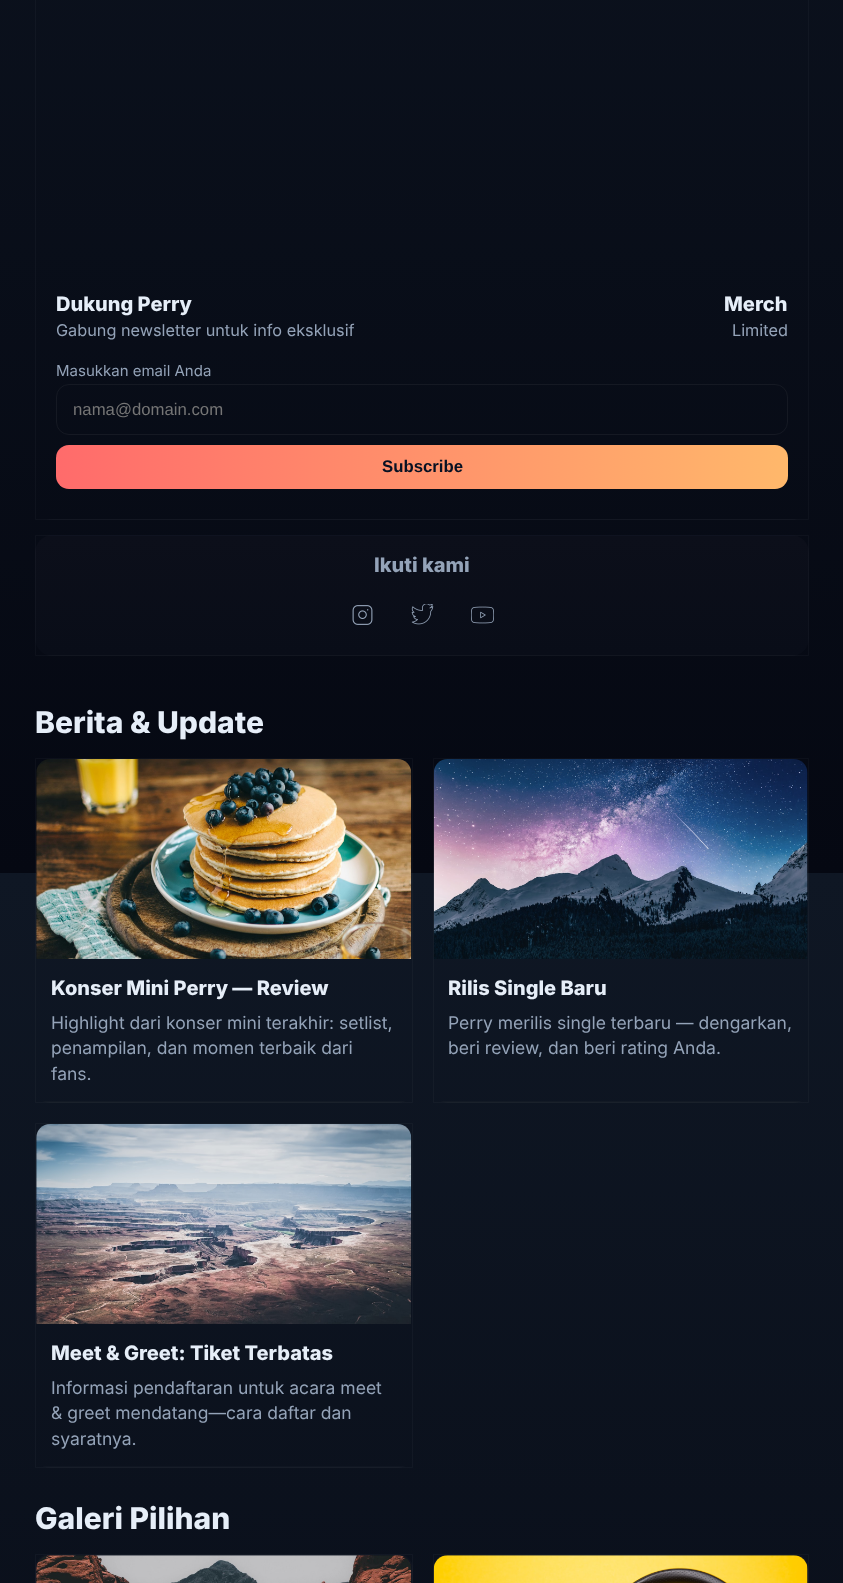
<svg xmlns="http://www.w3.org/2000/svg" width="843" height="1583">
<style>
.a{font:800 20px Inter;fill:#e6eef8}
.b{font:16.25px Inter;fill:#94a3b8}
.c{font:15px Inter;fill:#94a3b8}
.d{font:16.75px Liberation Sans;fill:#757575}
.e{font:bold 16.75px Liberation Sans;fill:#071123}
.f{font:800 20px Inter;fill:#94a3b8}
.g{font:800 30px Inter;fill:#e6eef8}
.h{font:17.5px Inter;fill:#94a3b8}
</style>
<defs>
<linearGradient id="g1" gradientUnits="userSpaceOnUse" x1="422" y1="-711" x2="422" y2="873"><stop offset="0" stop-color="#0f1724"/><stop offset="1" stop-color="#050812"/></linearGradient>
<linearGradient id="g2" gradientUnits="userSpaceOnUse" x1="422" y1="873" x2="422" y2="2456"><stop offset="0" stop-color="#0f1724"/><stop offset="1" stop-color="#050812"/></linearGradient>
<clipPath id="clip1"><rect x="35" y="-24" width="774" height="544" rx="18"/></clipPath>
<linearGradient id="g3" gradientUnits="userSpaceOnUse" x1="422" y1="519" x2="422" y2="1060"><stop offset="0" stop-color="#0c101b"/><stop offset="1" stop-color="#090d18"/></linearGradient>
<linearGradient id="g4" gradientUnits="userSpaceOnUse" x1="56" y1="467" x2="788" y2="467"><stop offset="0" stop-color="#ff6b6b"/><stop offset="1" stop-color="#ffb86b"/></linearGradient>
<clipPath id="clip2"><rect x="35" y="535" width="774" height="121" rx="18"/></clipPath>
<linearGradient id="g5" gradientUnits="userSpaceOnUse" x1="422" y1="417" x2="422" y2="536"><stop offset="0" stop-color="#0b0f1b"/><stop offset="1" stop-color="#080c19"/></linearGradient>
<linearGradient id="g6" gradientUnits="userSpaceOnUse" x1="422" y1="536" x2="422" y2="655"><stop offset="0" stop-color="#0c0f1a"/><stop offset="1" stop-color="#090d18"/></linearGradient>
<linearGradient id="g7" gradientUnits="userSpaceOnUse" x1="422" y1="655" x2="422" y2="774"><stop offset="0" stop-color="#0b0f19"/><stop offset="1" stop-color="#080c16"/></linearGradient>
<clipPath id="clip3"><rect x="35" y="758" width="378" height="345" rx="15"/></clipPath>
<linearGradient id="g8" gradientUnits="userSpaceOnUse" x1="224" y1="1101" x2="224" y2="1444"><stop offset="0" stop-color="#131a25"/><stop offset="1" stop-color="#101723"/></linearGradient>
<clipPath id="clip4"><rect x="433" y="758" width="376" height="345" rx="15"/></clipPath>
<linearGradient id="g9" gradientUnits="userSpaceOnUse" x1="621" y1="1101" x2="621" y2="1444"><stop offset="0" stop-color="#131a25"/><stop offset="1" stop-color="#101723"/></linearGradient>
<clipPath id="clip5"><rect x="35" y="1123" width="378" height="345" rx="15"/></clipPath>
<linearGradient id="g10" gradientUnits="userSpaceOnUse" x1="224" y1="1466" x2="224" y2="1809"><stop offset="0" stop-color="#101622"/><stop offset="1" stop-color="#0d131f"/></linearGradient>
<clipPath id="clip6"><rect x="35" y="1554" width="378" height="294" rx="15"/></clipPath>
<linearGradient id="g11" gradientUnits="userSpaceOnUse" x1="224" y1="1555" x2="224" y2="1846"><stop offset="0" stop-color="#101521"/><stop offset="1" stop-color="#0d131e"/></linearGradient>
<clipPath id="clip7"><rect x="433" y="1554" width="376" height="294" rx="15"/></clipPath>
<linearGradient id="g12" gradientUnits="userSpaceOnUse" x1="621" y1="1555" x2="621" y2="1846"><stop offset="0" stop-color="#101521"/><stop offset="1" stop-color="#0d131e"/></linearGradient>
</defs>
<rect width="100%" height="100%" fill="#fff"/>
<path fill="url(#g1)" d="M0 0h843v873H0z"/>
<path fill="url(#g2)" d="M0 873h843v710H0z"/>
<g clip-path="url(#clip1)">
<path fill="url(#g3)" d="M47 519h750v1H47z"/>
</g>
<path fill="none" stroke="#ffffff08" d="M35.5 -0.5h773v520H35.5z"/>
<rect fill="none" stroke="#151923" x="56.5" y="384.5" width="731" height="50" rx="12.5"/>
<rect fill="url(#g4)" x="56" y="445" width="732" height="44" rx="13"/>
<g clip-path="url(#clip2)">
<path fill="url(#g5)" d="M47 535h750v1H47z"/>
<path fill="url(#g6)" d="M35 536h774v119H35z"/>
<path fill="url(#g7)" d="M47 655h750v1H47z"/>
</g>
<path fill="none" stroke="#ffffff08" d="M35.5 535.5h773v120H35.5z"/>
<image href="1.png" x="352" y="605" width="21" height="20"/>
<image href="2.png" x="411" y="604" width="23" height="21"/>
<image href="3.png" x="471" y="606" width="23" height="18"/>
<g clip-path="url(#clip3)">
<path fill="url(#g8)" d="M35 1101h378v2H35z"/>
</g>
<path fill="none" stroke="#ffffff08" d="M35.5 758.5h377v344H35.5z"/>
<image href="4.png" x="36" y="759" width="376" height="200"/>
<g clip-path="url(#clip4)">
<path fill="url(#g9)" d="M433 1101h376v2H433z"/>
</g>
<path fill="none" stroke="#ffffff08" d="M433.5 758.5h375v344H433.5z"/>
<image href="5.png" x="433" y="759" width="375" height="200"/>
<g clip-path="url(#clip5)">
<path fill="url(#g10)" d="M35 1466h378v2H35z"/>
</g>
<path fill="none" stroke="#ffffff08" d="M35.5 1123.5h377v344H35.5z"/>
<image href="6.png" x="36" y="1124" width="376" height="200"/>
<g clip-path="url(#clip6)">
<path fill="url(#g11)" d="M35 1555h378v28H35z"/>
</g>
<path fill="none" stroke="#ffffff08" d="M35.5 1554.5h377v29H35.5z"/>
<image href="7.png" x="36" y="1555" width="376" height="28"/>
<g clip-path="url(#clip7)">
<path fill="url(#g12)" d="M433 1555h376v28H433z"/>
</g>
<path fill="none" stroke="#ffffff08" d="M433.5 1554.5h375v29H433.5z"/>
<image href="8.png" x="433" y="1555" width="375" height="28"/>
<text class="a" x="56" y="311">Dukung Perry</text>
<text class="b" x="56" y="336">Gabung newsletter untuk info eksklusif</text>
<text class="a" x="724" y="311">Merch</text>
<text class="b" x="732" y="336">Limited</text>
<text class="c" x="56" y="376">Masukkan email Anda</text>
<text class="d" x="73" y="415">nama@domain.com</text>
<text class="e" x="382" y="472">Subscribe</text>
<text class="f" x="374" y="572">Ikuti kami</text>
<text class="g" x="35" y="733">Berita &amp; Update</text>
<text class="a" x="51" y="995">Konser Mini Perry — Review</text>
<text class="h" x="51" y="1029">Highlight dari konser mini terakhir: setlist,</text>
<text class="h" x="51" y="1054">penampilan, dan momen terbaik dari</text>
<text class="h" x="51" y="1080">fans.</text>
<text class="a" x="448" y="995">Rilis Single Baru</text>
<text class="h" x="448" y="1029">Perry merilis single terbaru — dengarkan,</text>
<text class="h" x="448" y="1054">beri review, dan beri rating Anda.</text>
<text class="a" x="51" y="1360">Meet &amp; Greet: Tiket Terbatas</text>
<text class="h" x="51" y="1394">Informasi pendaftaran untuk acara meet</text>
<text class="h" x="51" y="1419">&amp; greet mendatang—cara daftar dan</text>
<text class="h" x="51" y="1445">syaratnya.</text>
<text class="g" x="35" y="1529">Galeri Pilihan</text>
</svg>
